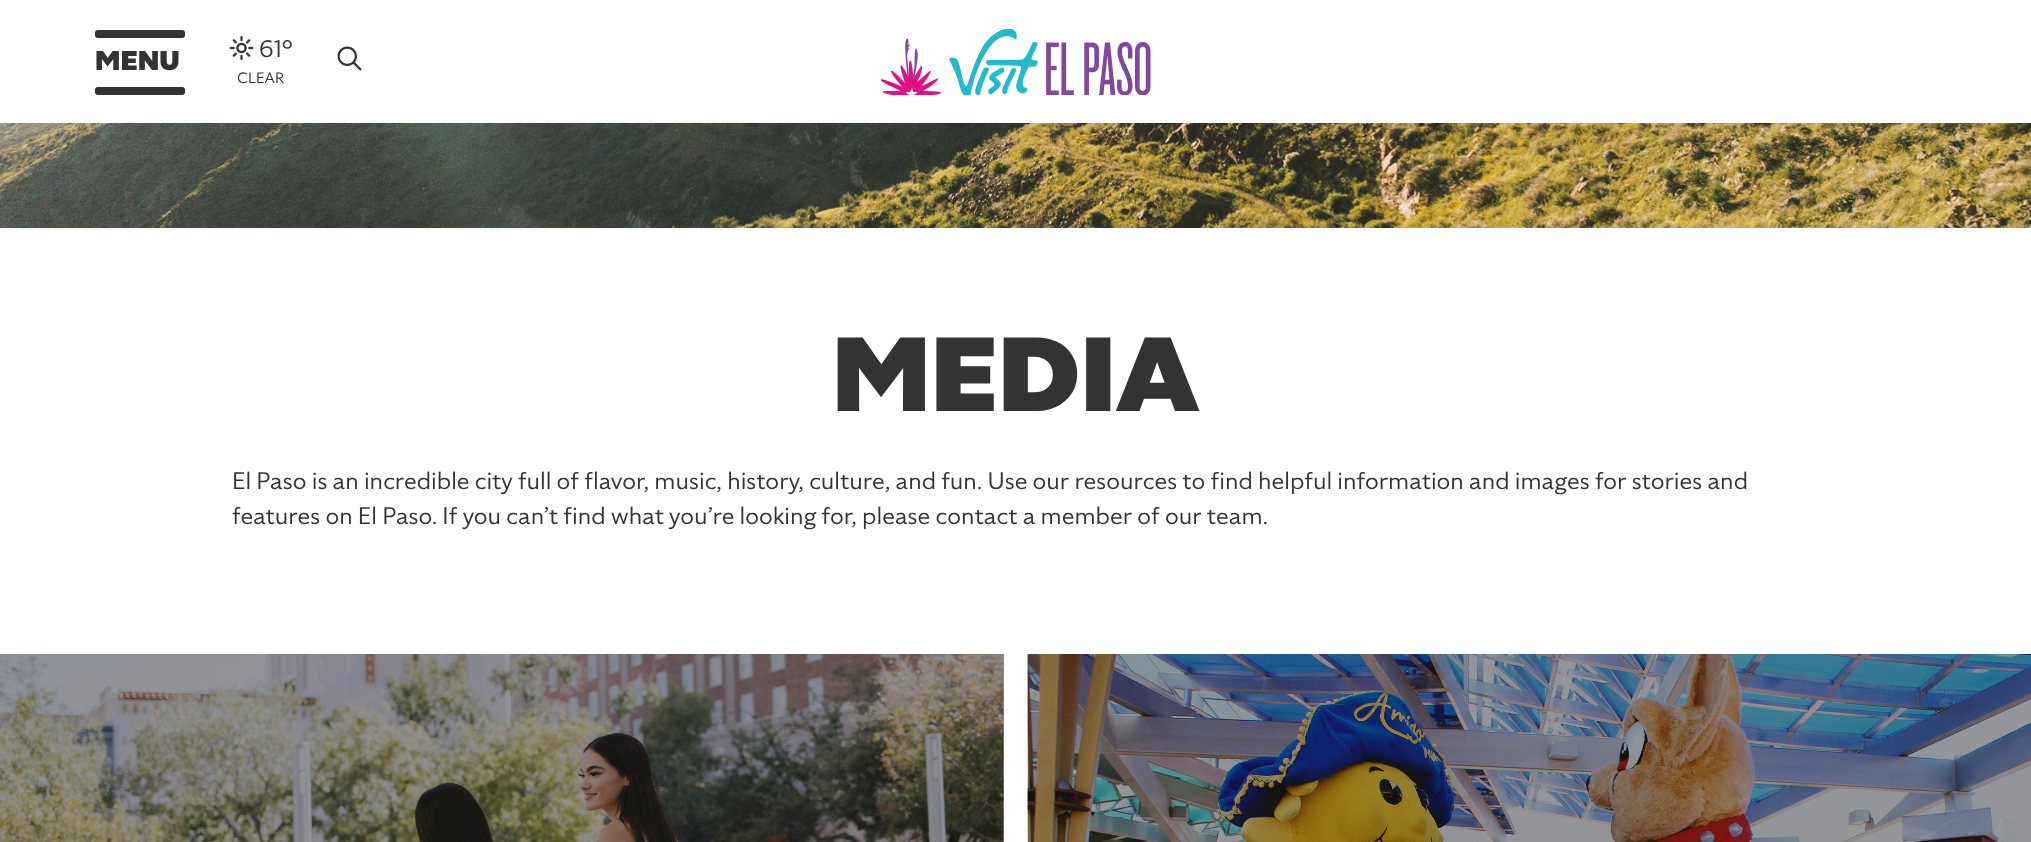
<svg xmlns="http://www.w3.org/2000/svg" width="2031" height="842">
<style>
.a{font:900 27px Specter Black;fill:#333}
.b{font:24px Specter;fill:#333}
.c{font:15px Specter;fill:#333}
.d{font:900 105px Specter Black;fill:#333}
</style>
<rect width="100%" height="100%" fill="#fff"/>
<path fill="#999" d="M1003 654h1v188H1003z"/>
<rect fill="#333" x="95" y="30" width="90" height="8" rx="3"/>
<rect fill="#333" x="95" y="87" width="90" height="8" rx="3"/>
<image href="1.png" x="229" y="36" width="25" height="24"/>
<image href="2.png" x="337" y="46" width="25" height="25"/>
<image href="3.png" x="881" y="29" width="270" height="66"/>
<image href="4.png" x="0" y="123" width="2031" height="105"/>
<image href="5.png" x="0" y="654" width="1004" height="188"/>
<image href="6.png" x="1027" y="654" width="1004" height="188"/>
<text class="a" x="95" y="70">MENU</text>
<text class="b" x="259" y="57">61°</text>
<text class="c" x="237" y="83">CLEAR</text>
<text class="d" x="832" y="411">MEDIA</text>
<text class="b" x="232" y="489">El Paso is an incredible city full of flavor, music, history, culture, and fun. Use our resources to find helpful information and images for stories and</text>
<text class="b" x="232" y="524">features on El Paso. If you can’t find what you’re looking for, please contact a member of our team.</text>
</svg>
